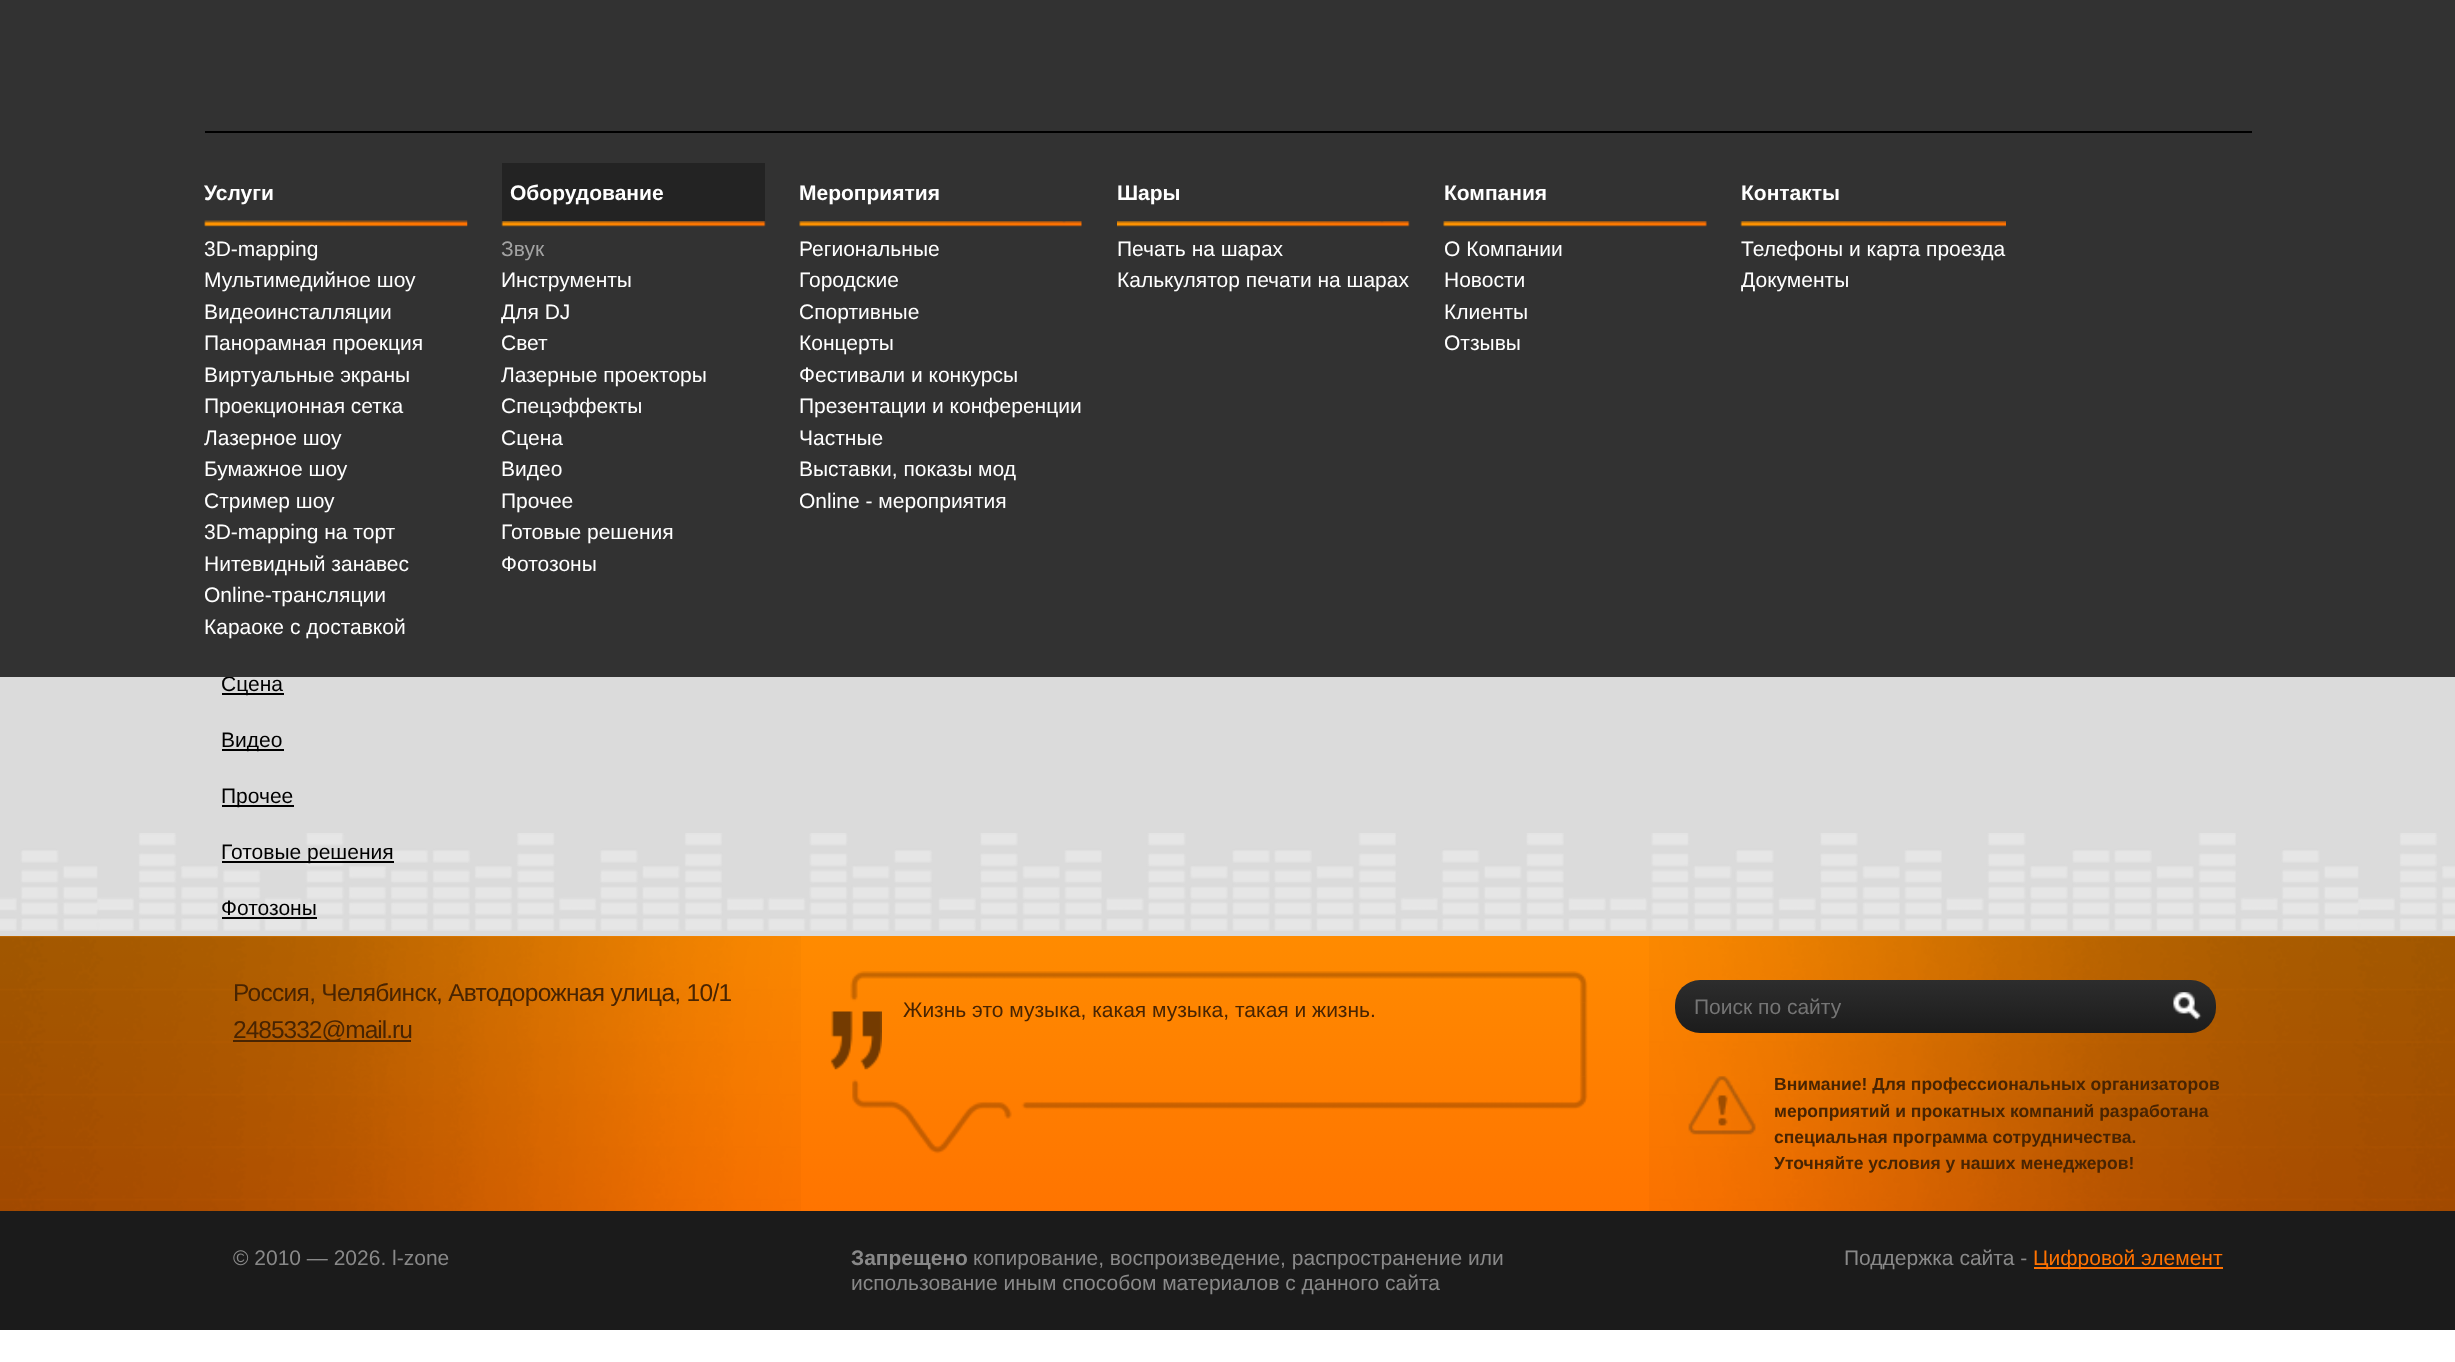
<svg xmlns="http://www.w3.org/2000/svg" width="2455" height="1362">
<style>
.a{font:21px Liberation Sans;fill:#000}
.b{font:21px Liberation Sans;fill:#fff}
.c{font:bold 21px Liberation Sans;fill:#fff}
.d{font:21px Liberation Sans;fill:#a3a3a3}
.e{font:24.5px Liberation Sans;letter-spacing:-0.7px;fill:#482402}
.f{font:24.5px Liberation Sans;letter-spacing:-1px;fill:#482402}
.g{font:21px Liberation Sans;fill:#482402}
.h{font:21px Liberation Sans;fill:#757575}
.i{font:bold 17.5px Liberation Sans;fill:#482402}
.j{font:21px Liberation Sans;fill:#898989}
.k{font:bold 21px Liberation Sans;fill:#898989}
.l{font:21px Liberation Sans;fill:#ff7201}
</style>
<defs>
<linearGradient id="g1" gradientUnits="userSpaceOnUse" x1="1228" y1="936" x2="1228" y2="1211"><stop offset="0" stop-color="#ff8b00"/><stop offset="1" stop-color="#ff7400"/></linearGradient>
<linearGradient id="g2" gradientUnits="userSpaceOnUse" x1="1945" y1="980" x2="1945" y2="1033"><stop offset="0" stop-color="#2d2d2d"/><stop offset="1" stop-color="#1c1c1c"/></linearGradient>
</defs>
<rect width="100%" height="100%" fill="#fff"/>
<path fill="#dbdbdb" d="M0 677h2455v259H0z"/>
<path fill="#000" d="M222 693h62v2H222z"/>
<path fill="#000" d="M222 749h62v2H222z"/>
<path fill="#000" d="M222 805h72v2H222z"/>
<image href="7.png" x="0" y="833" width="2455" height="98"/>
<path fill="#000" d="M222 861h172v2H222z"/>
<path fill="#000" d="M222 917h95v2H222z"/>
<path fill="url(#g1)" d="M0 936h2455v275H0z"/>
<image href="8.png" x="0" y="936" width="801" height="275"/>
<image href="9.png" x="1649" y="936" width="806" height="275"/>
<path fill="#482402" d="M233 1040h178v2H233z"/>
<image href="11.png" x="830" y="1011" width="52" height="59"/>
<rect fill="url(#g2)" x="1675" y="980" width="541" height="53" rx="25"/>
<image href="14.png" x="2173" y="992" width="29" height="29"/>
<image href="15.png" x="1688" y="1076" width="68" height="59"/>
<path fill="#1b1b1b" d="M0 1211h2455v119H0z"/>
<path fill="#ff7201" d="M2034 1267h189v2H2034z"/>
<text class="a" x="221" y="691">Сцена</text>
<path fill="#323232" d="M0 0h2455v677H0z"/>
<text class="b" x="1741" y="287">Документы</text>
<text class="b" x="1741" y="256">Телефоны и карта проезда</text>
<text class="c" x="1741" y="200">Контакты</text>
<image href="6.png" x="1740" y="221" width="266" height="6"/>
<text class="b" x="1444" y="350">Отзывы</text>
<text class="b" x="1444" y="319">Клиенты</text>
<text class="b" x="1444" y="287">Новости</text>
<text class="b" x="1444" y="256">О Компании</text>
<text class="c" x="1444" y="200">Компания</text>
<image href="5.png" x="1443" y="221" width="264" height="6"/>
<text class="b" x="1117" y="287">Калькулятор печати на шарах</text>
<text class="b" x="1117" y="256">Печать на шарах</text>
<text class="c" x="1117" y="200">Шары</text>
<image href="4.png" x="1117" y="221" width="293" height="6"/>
<text class="b" x="799" y="508">Online - мероприятия</text>
<text class="b" x="799" y="476">Выставки, показы мод</text>
<text class="b" x="799" y="445">Частные</text>
<text class="b" x="799" y="413">Презентации и конференции</text>
<text class="b" x="799" y="382">Фестивали и конкурсы</text>
<text class="b" x="799" y="350">Концерты</text>
<text class="b" x="799" y="319">Спортивные</text>
<text class="b" x="799" y="287">Городские</text>
<text class="b" x="799" y="256">Региональные</text>
<text class="c" x="799" y="200">Мероприятия</text>
<image href="3.png" x="799" y="221" width="283" height="6"/>
<text class="b" x="501" y="571">Фотозоны</text>
<text class="b" x="501" y="539">Готовые решения</text>
<text class="b" x="501" y="508">Прочее</text>
<text class="b" x="501" y="476">Видео</text>
<text class="b" x="501" y="445">Сцена</text>
<text class="b" x="501" y="413">Спецэффекты</text>
<text class="b" x="501" y="382">Лазерные проекторы</text>
<text class="b" x="501" y="350">Свет</text>
<text class="b" x="501" y="319">Для DJ</text>
<text class="b" x="501" y="287">Инструменты</text>
<text class="d" x="501" y="256">Звук</text>
<path fill="#232323" d="M502 163h263v58H502z"/>
<text class="c" x="510" y="200">Оборудование</text>
<image href="2.png" x="501" y="221" width="265" height="6"/>
<text class="b" x="204" y="634">Караоке с доставкой</text>
<text class="b" x="204" y="602">Online-трансляции</text>
<text class="b" x="204" y="571">Нитевидный занавес</text>
<text class="b" x="204" y="539">3D-mapping на торт</text>
<text class="b" x="204" y="508">Стример шоу</text>
<text class="b" x="204" y="476">Бумажное шоу</text>
<text class="b" x="204" y="445">Лазерное шоу</text>
<text class="b" x="204" y="413">Проекционная сетка</text>
<text class="b" x="204" y="382">Виртуальные экраны</text>
<text class="b" x="204" y="350">Панорамная проекция</text>
<text class="b" x="204" y="319">Видеоинсталляции</text>
<text class="b" x="204" y="287">Мультимедийное шоу</text>
<text class="b" x="204" y="256">3D-mapping</text>
<text class="c" x="204" y="200">Услуги</text>
<image href="1.png" x="204" y="220" width="264" height="7"/>
<path fill="#000" d="M205 131h2047v2H205z"/>
<text class="a" x="221" y="747">Видео</text>
<text class="a" x="221" y="803">Прочее</text>
<text class="a" x="221" y="859">Готовые решения</text>
<text class="a" x="221" y="915">Фотозоны</text>
<text class="e" x="233" y="1001">Россия, Челябинск, Автодорожная улица, 10/1</text>
<text class="f" x="233" y="1038">2485332@mail.ru</text>
<text class="g" x="903" y="1017">Жизнь это музыка, какая музыка, такая и жизнь.</text>
<image href="10.png" x="850" y="971" width="738" height="32"/>
<image href="12.png" x="1580" y="1002" width="8" height="75"/>
<image href="13.png" x="852" y="1076" width="736" height="78"/>
<text class="h" x="1694" y="1014">Поиск по сайту</text>
<text class="i" x="1774" y="1090">Внимание! Для профессиональных организаторов</text>
<text class="i" x="1774" y="1117">мероприятий и прокатных компаний разработана</text>
<text class="i" x="1774" y="1143">специальная программа сотрудничества.</text>
<text class="i" x="1774" y="1169">Уточняйте условия у наших менеджеров!</text>
<text class="j" x="233" y="1265">© 2010 — 2026. l-zone</text>
<text class="k" x="851" y="1265">Запрещено</text>
<text class="j" x="973" y="1265">копирование, воспроизведение, распространение или</text>
<text class="j" x="851" y="1290">использование иным способом материалов с данного сайта</text>
<text class="j" x="1844" y="1265">Поддержка сайта -</text>
<text class="l" x="2033" y="1265">Цифровой элемент</text>
</svg>
